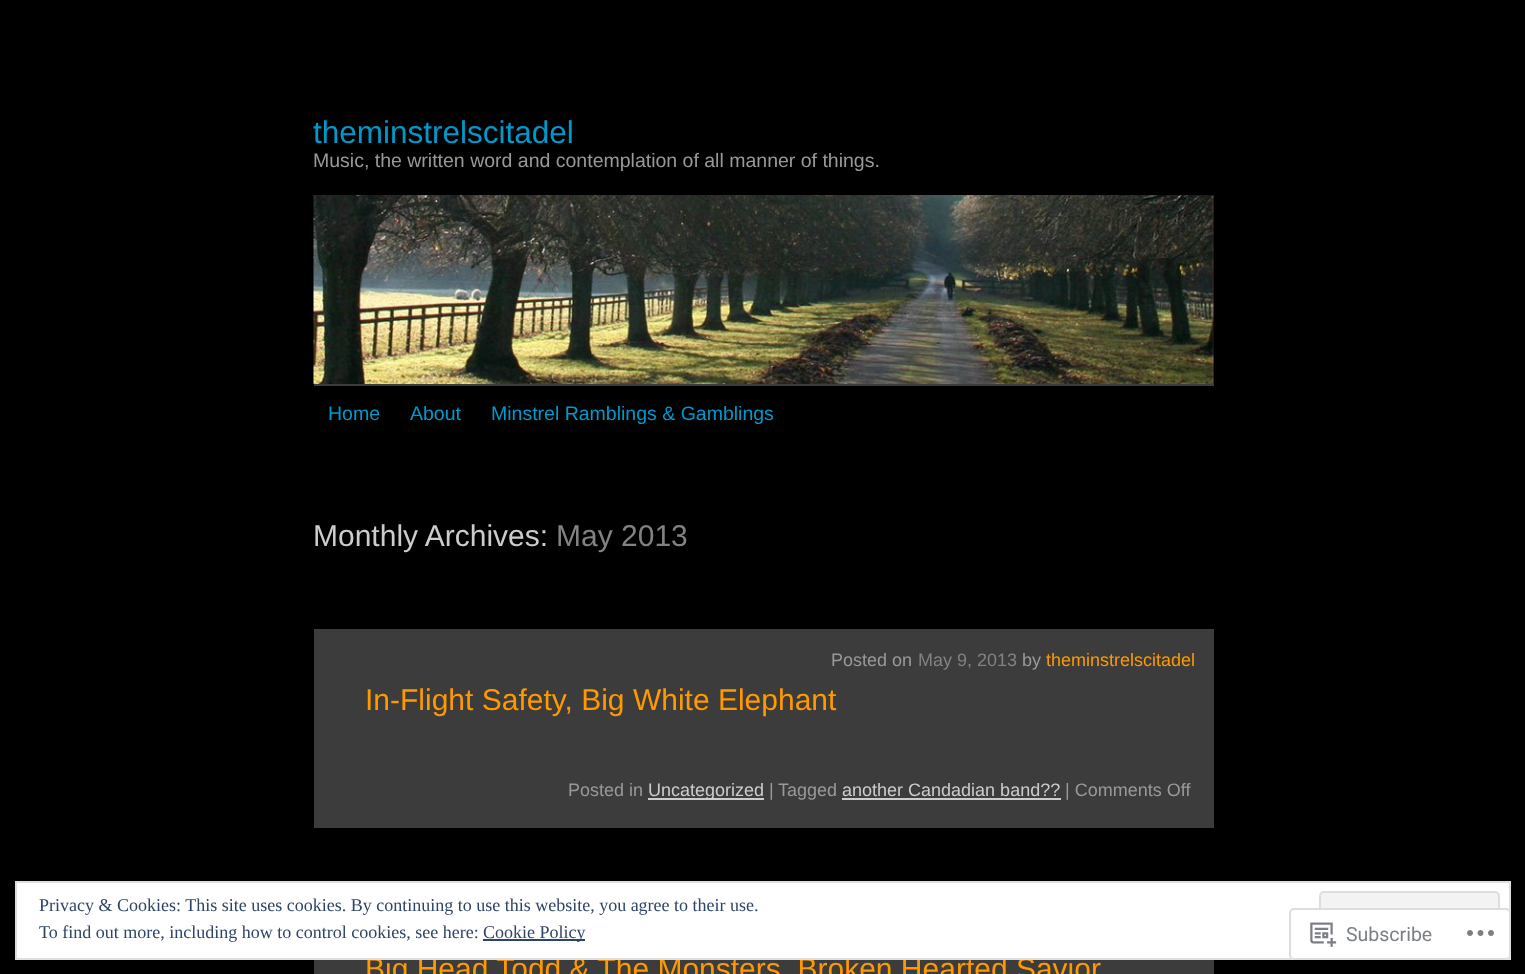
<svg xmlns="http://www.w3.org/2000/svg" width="1525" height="974">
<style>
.a{font:31.5px Liberation Sans;fill:#09c}
.b{font:19.5px Liberation Sans;fill:#999}
.c{font:19.5px Liberation Sans;fill:#09c}
.d{font:30px Liberation Sans;fill:#ccc}
.e{font:30px Liberation Sans;fill:#828282}
.f{font:18px Liberation Sans;fill:#999}
.g{font:18px Liberation Sans;fill:#828282}
.h{font:18px Liberation Sans;fill:#f90}
.i{font:30px Liberation Sans;fill:#f90}
.j{font:18px Liberation Sans;fill:#ccc}
.k{font:18px Liberation Serif;fill:#2e4467}
.l{font:19.5px Roboto;fill:#7b7f84}
</style>
<rect width="100%" height="100%" fill="#000"/>
<image href="1.png" x="313" y="195" width="901" height="189"/>
<path fill="#3c3c3c" d="M314 384h900v2H314z"/>
<path fill="#3c3c3c" d="M314 629h900v199H314z"/>
<path fill="#ccc" d="M648 798h116v2H648z"/>
<path fill="#ccc" d="M842 798h219v2H842z"/>
<path fill="#3c3c3c" d="M314 960h900v14H314z"/>
<text class="a" x="313" y="143">theminstrelscitadel</text>
<text class="b" x="313" y="167">Music, the written word and contemplation of all manner of things.</text>
<text class="c" x="328" y="420">Home</text>
<text class="c" x="410" y="420">About</text>
<text class="c" x="491" y="420">Minstrel Ramblings &amp; Gamblings</text>
<text class="d" x="313" y="546">Monthly Archives:</text>
<text class="e" x="556" y="546">May 2013</text>
<text class="f" x="831" y="666">Posted on</text>
<text class="g" x="918" y="666">May 9, 2013</text>
<text class="f" x="1022" y="666">by</text>
<text class="h" x="1046" y="666">theminstrelscitadel</text>
<text class="i" x="365" y="710">In-Flight Safety, Big White Elephant</text>
<text class="f" x="568" y="796">Posted in</text>
<text class="j" x="648" y="796">Uncategorized</text>
<text class="f" x="769" y="796">|</text>
<text class="f" x="778" y="796">Tagged</text>
<text class="j" x="842" y="796">another Candadian band??</text>
<text class="f" x="1065" y="796">| Comments Off</text>
<text class="i" x="365" y="979">Big Head Todd &amp; The Monsters, Broken Hearted Savior</text>
<path fill="#fff" stroke="#dedede" stroke-width="2" d="M16 882h1494v77H16z"/>
<text class="k" x="39" y="911">Privacy &amp; Cookies: This site uses cookies. By continuing to use this website, you agree to their use.</text>
<rect fill="#f3f3f3" stroke="#dedede" stroke-width="2" x="1320" y="892" width="179" height="57" rx="4"/>
<text class="k" x="39" y="938">To find out more, including how to control cookies, see here:</text>
<path fill="#2e4467" d="M483 939h102v2H483z"/>
<text class="k" x="483" y="938">Cookie Policy</text>
<rect fill="#fffffffa" x="1289" y="908" width="222" height="52" rx="5"/>
<rect fill="none" stroke="#dcdcdefa" stroke-width="2" x="1290" y="909" width="220" height="50" rx="4"/>
<image href="2.png" x="1310" y="922" width="27" height="25"/>
<text class="l" x="1346" y="941">Subscribe</text>
<image href="3.png" x="1467" y="930" width="27" height="6"/>
</svg>
